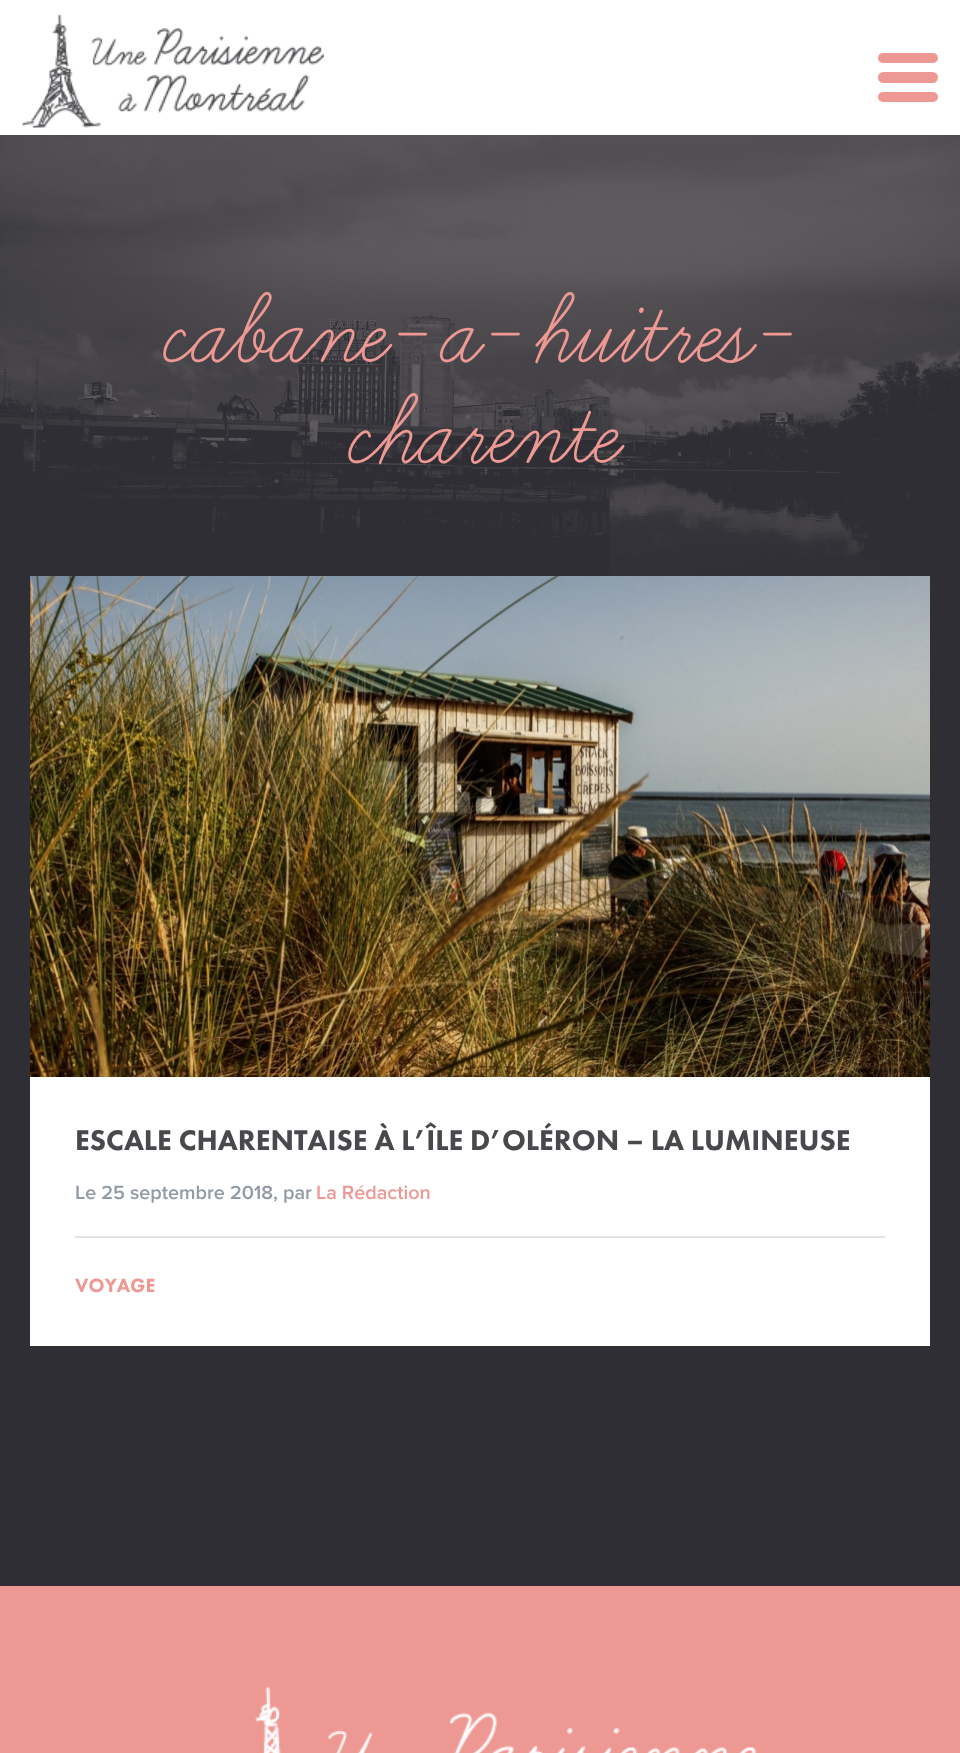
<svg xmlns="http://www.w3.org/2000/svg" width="960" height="1753">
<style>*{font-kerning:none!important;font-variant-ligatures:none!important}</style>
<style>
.a{font:122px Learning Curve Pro;fill:#ee9894}
.b{font:900 29.5px Futura PT;fill:#48494d}
.c{font:600 19.75px Proxima Nova;fill:#929aa6}
.d{font:600 19.75px Proxima Nova;fill:#ee9894}
.e{font:900 19.75px Futura PT;fill:#ee9894}
</style>
<rect width="100%" height="100%" fill="#fff"/>
<image href="1.png" x="22" y="14" width="302" height="114"/>
<rect fill="#ee9894" x="878" y="53" width="60" height="10" rx="5"/>
<rect fill="#ee9894" x="878" y="72" width="60" height="11" rx="5.5"/>
<rect fill="#ee9894" x="878" y="92" width="60" height="10" rx="5"/>
<path fill="#2f2e34" d="M0 644h960v942H0z"/>
<image href="2.png" x="0" y="135" width="960" height="509"/>
<image href="3.png" x="30" y="576" width="900" height="501"/>
<path fill="#fff" d="M30 1077h900v269H30z"/>
<path fill="#e3e3e3" d="M75 1236h810v2H75z"/>
<path fill="#ee9894" d="M0 1586h960v167H0z"/>
<image href="4.png" x="255" y="1687" width="502" height="66"/>
<text class="a" x="159" y="366">cabane-a-huitres-</text>
<text class="a" x="344" y="467">charente</text>
<text class="b" x="75" y="1150">ESCALE CHARENTAISE À L’ÎLE D’OLÉRON – LA LUMINEUSE</text>
<text class="c" x="75" y="1199">Le 25 septembre 2018, par</text>
<text class="d" x="316" y="1199">La Rédaction</text>
<text class="e" x="75" y="1292">VOYAGE</text>
</svg>
